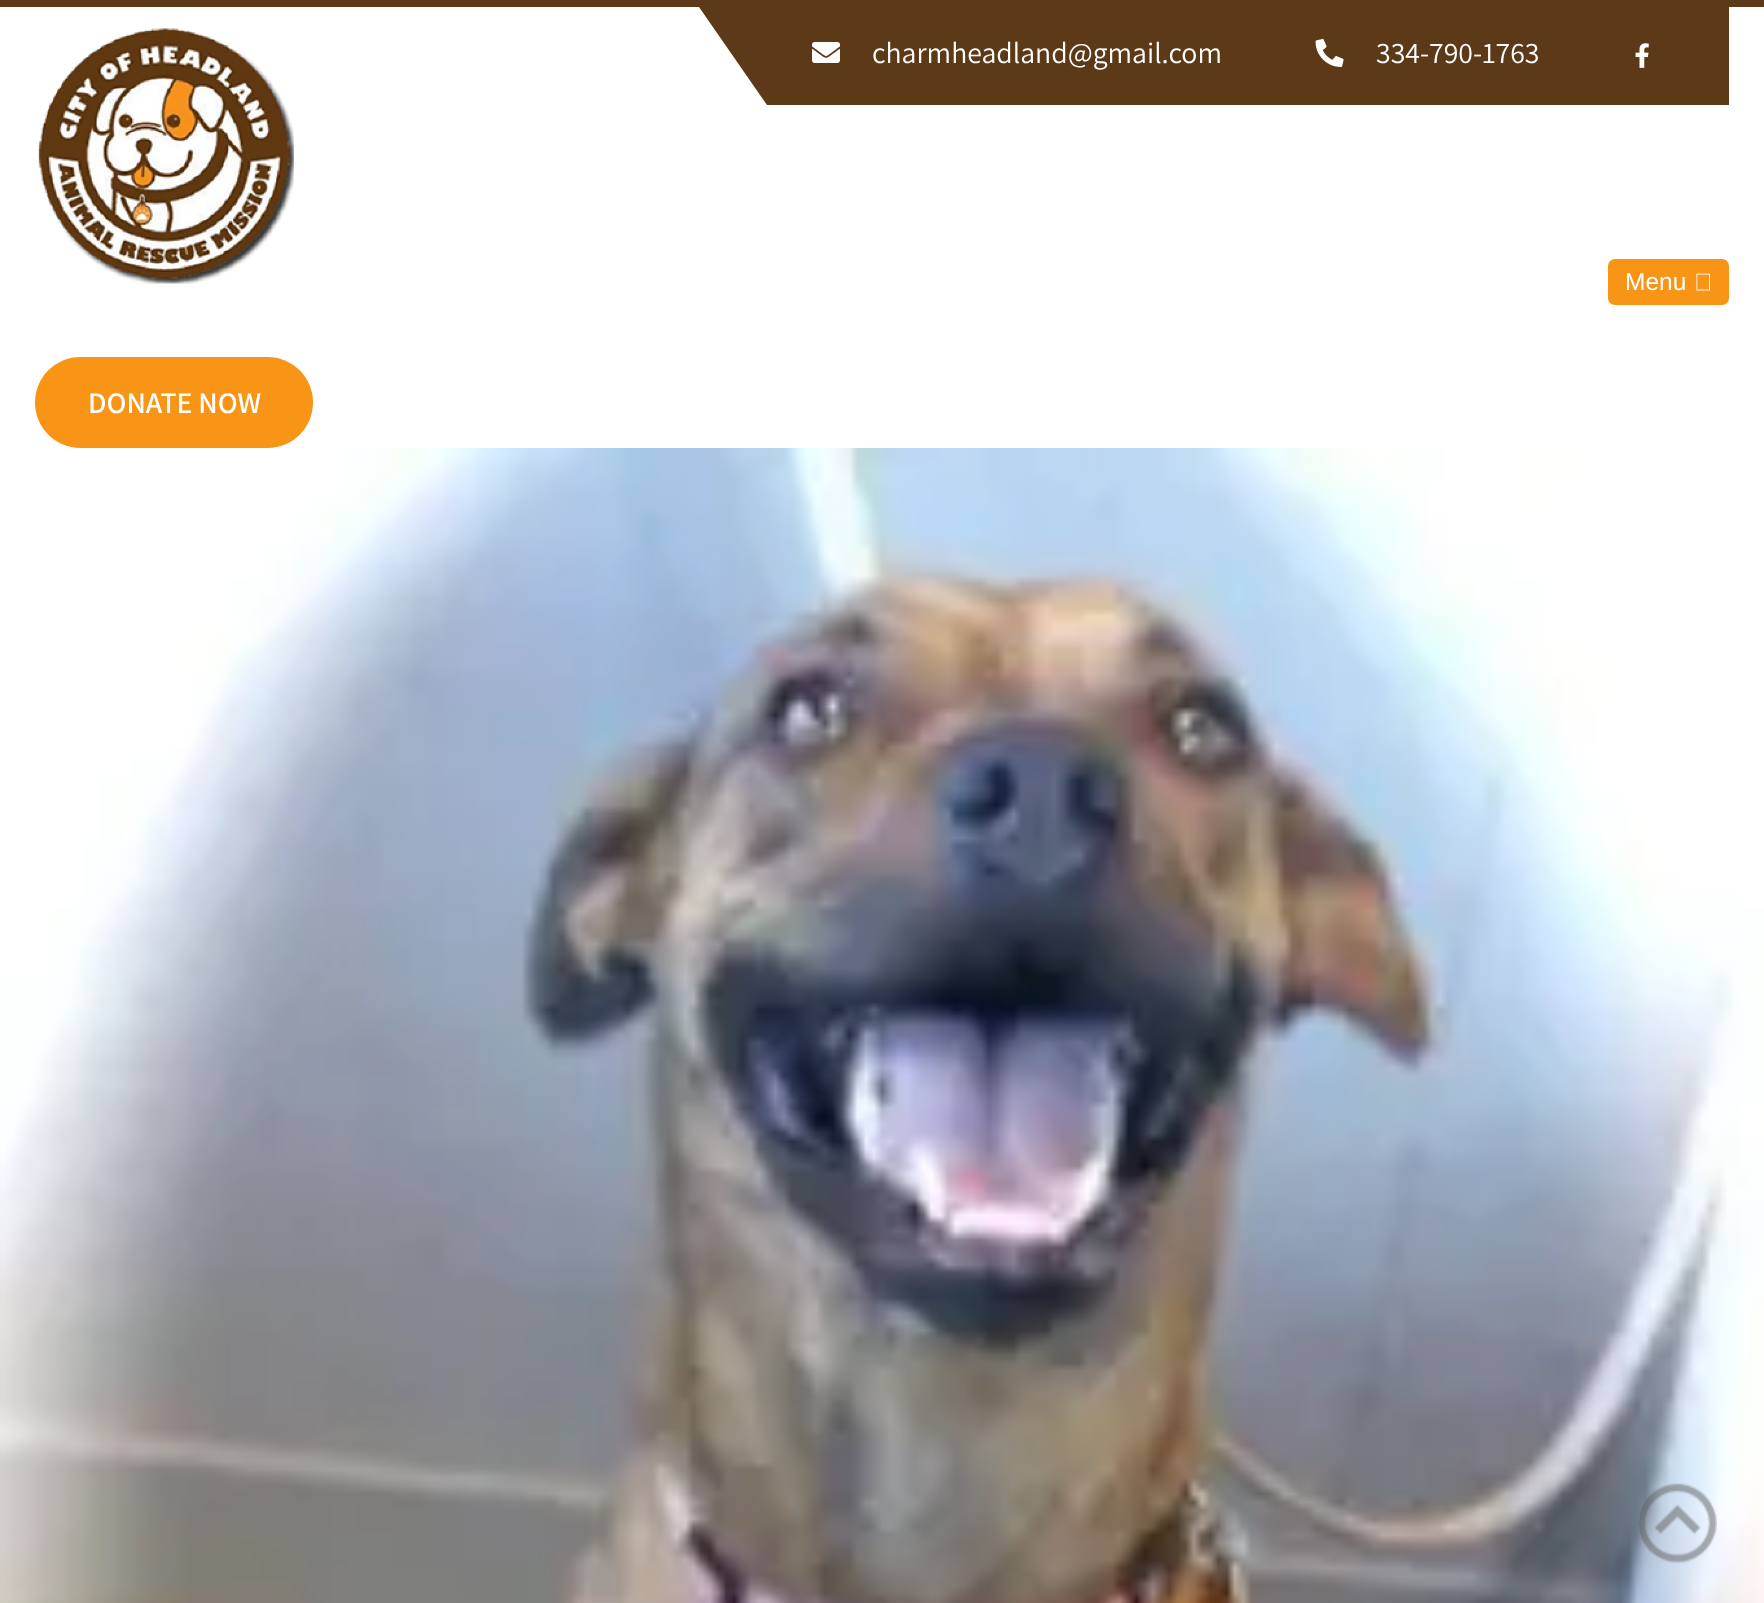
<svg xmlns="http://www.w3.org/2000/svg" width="1764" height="1603">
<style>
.a{font:200 29.75px Assistant;fill:#fff}
.b{font:24.5px Liberation Sans;fill:#fff}
.c{font:600 29.75px Assistant;fill:#fff}
</style>
<rect width="100%" height="100%" fill="#fff"/>
<path fill="#5c3917" d="M0 0h1764v7H0z"/>
<image href="1.png" x="38" y="28" width="256" height="256"/>
<path fill="#5c3917" d="M769 7h960v98H769z"/>
<image href="2.png" x="812" y="42" width="28" height="21"/>
<path fill="#5c3917" d="M699 7h70l68 98h-70z"/>
<image href="3.png" x="1315" y="39" width="29" height="28"/>
<image href="4.png" x="1635" y="43" width="14" height="25"/>
<rect fill="#f89416" x="1608" y="259" width="121" height="46" rx="7"/>
<image href="5.png" x="1696" y="273" width="14" height="18"/>
<rect fill="#f89416" x="35" y="357" width="278" height="91" rx="45.5"/>
<image href="6.png" x="0" y="448" width="1764" height="1155"/>
<image href="7.png" x="1638" y="1483" width="79" height="81"/>
<text class="a" x="872" y="63">charmheadland@gmail.com</text>
<text class="a" x="1376" y="63">334-790-1763</text>
<text class="b" x="1625" y="290">Menu</text>
<text class="c" x="88" y="413">DONATE NOW</text>
</svg>
